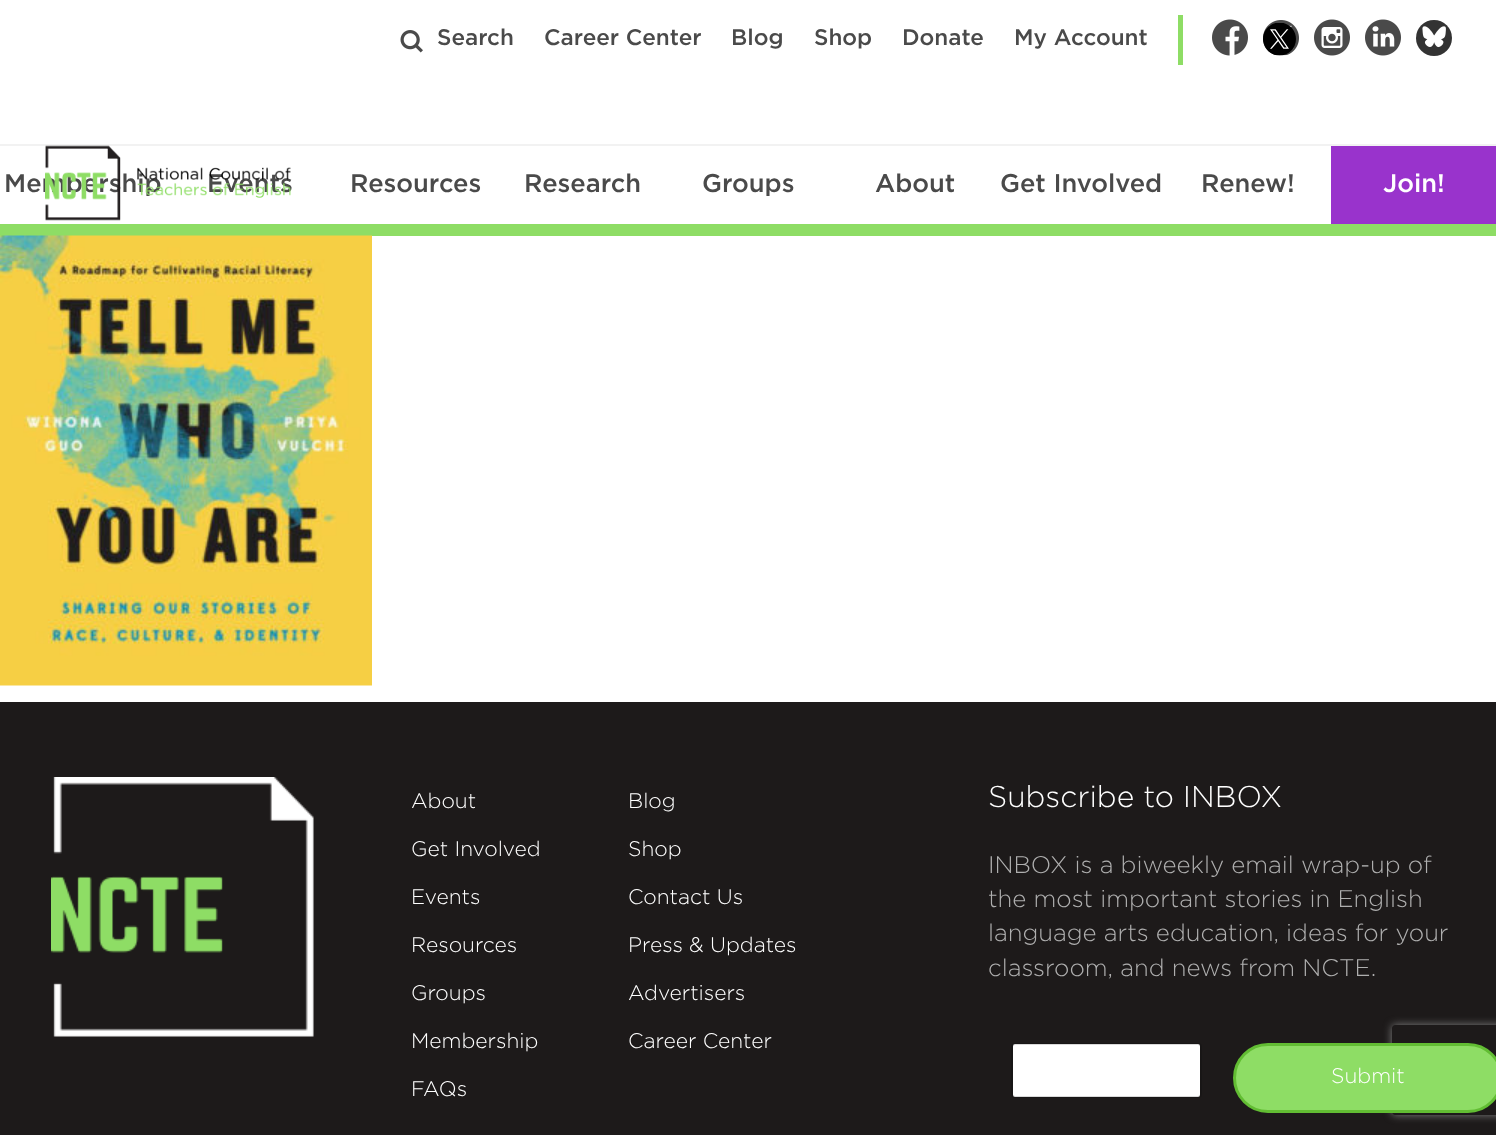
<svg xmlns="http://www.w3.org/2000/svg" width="1496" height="1135">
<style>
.a{font:500 22.5px Gotham;fill:#4a4a4a}
.b{font:500 25.5px Gotham;fill:#4a4a4a}
.c{font:500 25.5px Gotham;fill:#fff}
.d{font:300 21px Gotham;fill:#fff}
.e{font:300 30px Gotham;fill:#fff}
.f{font:300 24px Gotham;fill:#afafaf}
</style>
<defs>
<clipPath id="clip1"><path d="M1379 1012h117v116h-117zm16 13h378c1.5 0 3 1.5 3 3v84c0 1.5-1.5 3-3 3h-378c-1.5 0-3-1.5-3-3v-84c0-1.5 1.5-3 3-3z" clip-rule="evenodd"/></clipPath>
</defs>
<rect width="100%" height="100%" fill="#fff"/>
<path fill="#8edd65" d="M0 224h1496v12H0z"/>
<path fill="#8edd65" d="M1178 15h5v50H1178z"/>
<image href="1.png" x="400" y="30" width="23" height="23"/>
<image href="2.png" x="1212" y="19" width="36" height="37"/>
<image href="3.png" x="1263" y="20" width="36" height="36"/>
<image href="4.png" x="1263" y="23" width="33" height="33"/>
<image href="5.png" x="1314" y="19" width="36" height="37"/>
<image href="6.png" x="1365" y="19" width="36" height="37"/>
<circle fill="#333" cx="1434" cy="38" r="18"/>
<image href="7.png" x="1422" y="26" width="24" height="22"/>
<path fill="#f2f2f2" d="M0 144h1496v2H0z"/>
<path fill="#93c" d="M1331 146h165v78H1331z"/>
<image href="9.png" x="0" y="235" width="372" height="451"/>
<path fill="#1d1a1a" d="M0 702h1496v433H0z"/>
<image href="10.png" x="51" y="777" width="263" height="260"/>
<rect fill="#fff" x="1013" y="1044" width="187" height="53" rx="2"/>
<rect fill="none" stroke="#00000026" stroke-width="2" x="1012" y="1044" width="189" height="53" rx="3"/>
<g clip-path="url(#clip1)">
<rect fill="#808080" filter="blur(4px)" x="1392" y="1025" width="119" height="90" rx="3"/>
</g>
<rect fill="#8edd65" stroke="#62bd33" stroke-width="3" x="1234.5" y="1044.5" width="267" height="67" rx="33.5"/>
<text class="a" x="437" y="45">Search</text>
<text class="a" x="544" y="45">Career Center</text>
<text class="a" x="731" y="45">Blog</text>
<text class="a" x="814" y="45">Shop</text>
<text class="a" x="902" y="45">Donate</text>
<text class="a" x="1014" y="45">My Account</text>
<text class="b" x="4" y="192">Membership</text>
<text class="b" x="207" y="192">Events</text>
<image href="8.png" x="45" y="145" width="246" height="76"/>
<text class="b" x="350" y="192">Resources</text>
<text class="b" x="524" y="192">Research</text>
<text class="b" x="702" y="192">Groups</text>
<text class="b" x="875" y="192">About</text>
<text class="b" x="1000" y="192">Get Involved</text>
<text class="b" x="1201" y="192">Renew!</text>
<text class="c" x="1383" y="192">Join!</text>
<text class="d" x="411" y="808">About</text>
<text class="d" x="411" y="856">Get Involved</text>
<text class="d" x="411" y="904">Events</text>
<text class="d" x="411" y="952">Resources</text>
<text class="d" x="411" y="1000">Groups</text>
<text class="d" x="411" y="1048">Membership</text>
<text class="d" x="411" y="1096">FAQs</text>
<text class="d" x="628" y="808">Blog</text>
<text class="d" x="628" y="856">Shop</text>
<text class="d" x="628" y="904">Contact Us</text>
<text class="d" x="628" y="952">Press &amp; Updates</text>
<text class="d" x="628" y="1000">Advertisers</text>
<text class="d" x="628" y="1048">Career Center</text>
<text class="e" x="988" y="807">Subscribe to INBOX</text>
<text class="f" x="988" y="873">INBOX is a biweekly email wrap-up of</text>
<text class="f" x="988" y="907">the most important stories in English</text>
<text class="f" x="988" y="941">language arts education, ideas for your</text>
<text class="f" x="988" y="976">classroom, and news from NCTE.</text>
<text class="d" x="1331" y="1083">Submit</text>
</svg>
